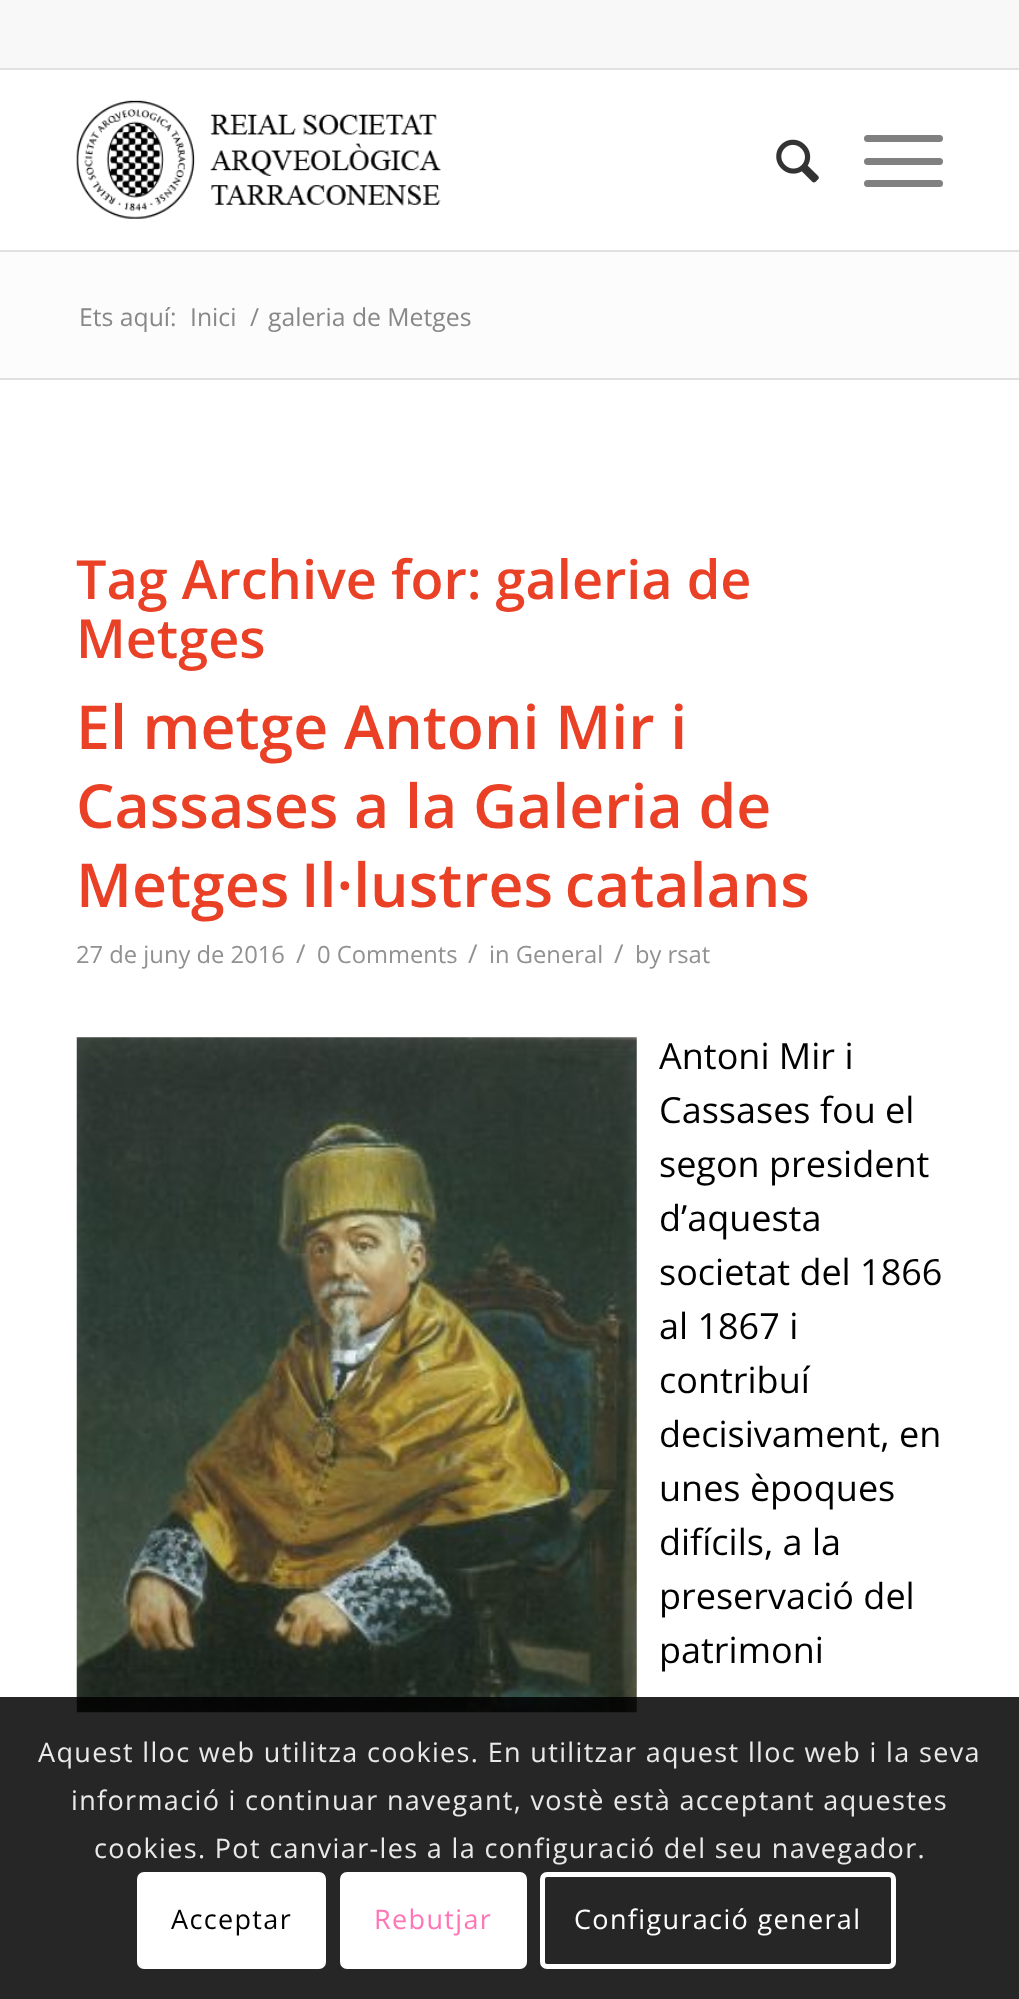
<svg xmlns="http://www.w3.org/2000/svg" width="1019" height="1999">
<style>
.a{font:24.75px Open Sans;fill:#888}
.b{font:600 54px Open Sans;fill:#e94026}
.c{font:600 60.75px Open Sans;fill:#e94026}
.d{font:23.75px Open Sans;fill:#919191}
.e{font:26px Open Sans;fill:#919191}
.f{font:36px Open Sans;fill:#000}
.g{font:27px Open Sans;letter-spacing:1.35px;fill:#e9e9e9}
.h{font:27px Open Sans;letter-spacing:1.35px;fill:#000}
.i{font:27px Open Sans;letter-spacing:1.35px;fill:#ff75b5}
.j{font:27px Open Sans;letter-spacing:1.35px;fill:#fff}
</style>
<rect width="100%" height="100%" fill="#fff"/>
<path fill="#f8f8f8" d="M0 0h1019v68H0z"/>
<path fill="#e1e1e1" d="M0 68h1019v2H0z"/>
<path fill="#e1e1e1" d="M0 250h1019v2H0z"/>
<image href="1.png" x="76" y="100" width="365" height="119"/>
<image href="2.png" x="776" y="139" width="43" height="44"/>
<rect fill="#808080" x="864" y="158" width="79" height="7" rx="3.5"/>
<rect fill="#808080" x="864" y="135" width="79" height="7" rx="3.5"/>
<rect fill="#808080" x="864" y="180" width="79" height="7" rx="3.5"/>
<path fill="#fcfcfc" d="M0 252h1019v126H0z"/>
<path fill="#e1e1e1" d="M0 378h1019v2H0z"/>
<image href="3.png" x="76" y="1037" width="561" height="676"/>
<path fill="#000000d9" d="M0 1697h1019v302H0z"/>
<rect fill="#fff" x="137" y="1872" width="189" height="97" rx="7"/>
<rect fill="#fff" stroke="#fff" stroke-width="5" x="342.5" y="1874.5" width="182" height="92" rx="4.5"/>
<rect fill="none" stroke="#fff" stroke-width="5" x="542.5" y="1874.5" width="351" height="92" rx="4.5"/>
<text class="a" x="79" y="326">Ets aquí:</text>
<text class="a" x="190" y="326">Inici</text>
<text class="a" x="250" y="326">/</text>
<text class="a" x="268" y="326">galeria de Metges</text>
<text class="b" x="76" y="599">Tag Archive for: galeria de</text>
<text class="b" x="76" y="658">Metges</text>
<text class="c" x="76" y="749">El metge Antoni Mir i</text>
<text class="c" x="76" y="828">Cassases a la Galeria de</text>
<text class="c" x="76" y="907" word-spacing="-4">Metges Il·lustres catalans</text>
<text class="d" x="76" y="963">27 de juny de 2016</text>
<text class="e" x="296" y="963">/</text>
<text class="d" x="317" y="963">0 Comments</text>
<text class="e" x="468" y="963">/</text>
<text class="d" x="489" y="963">in General</text>
<text class="e" x="614" y="963">/</text>
<text class="d" x="635" y="963">by rsat</text>
<text class="f" x="659" y="1069">Antoni Mir i</text>
<text class="f" x="659" y="1123">Cassases fou el</text>
<text class="f" x="659" y="1177">segon president</text>
<text class="f" x="659" y="1231">d’aquesta</text>
<text class="f" x="659" y="1285">societat del 1866</text>
<text class="f" x="659" y="1339">al 1867 i</text>
<text class="f" x="659" y="1393">contribuí</text>
<text class="f" x="659" y="1447">decisivament, en</text>
<text class="f" x="659" y="1501">unes èpoques</text>
<text class="f" x="659" y="1555">difícils, a la</text>
<text class="f" x="659" y="1609">preservació del</text>
<text class="f" x="659" y="1663">patrimoni</text>
<text class="g" x="38" y="1762">Aquest lloc web utilitza cookies. En utilitzar aquest lloc web i la seva</text>
<text class="g" x="71" y="1810">informació i continuar navegant, vostè està acceptant aquestes</text>
<text class="g" x="94" y="1858">cookies. Pot canviar-les a la configuració del seu navegador.</text>
<text class="h" x="171" y="1929">Acceptar</text>
<text class="i" x="374" y="1929">Rebutjar</text>
<text class="j" x="574" y="1929">Configuració general</text>
</svg>
